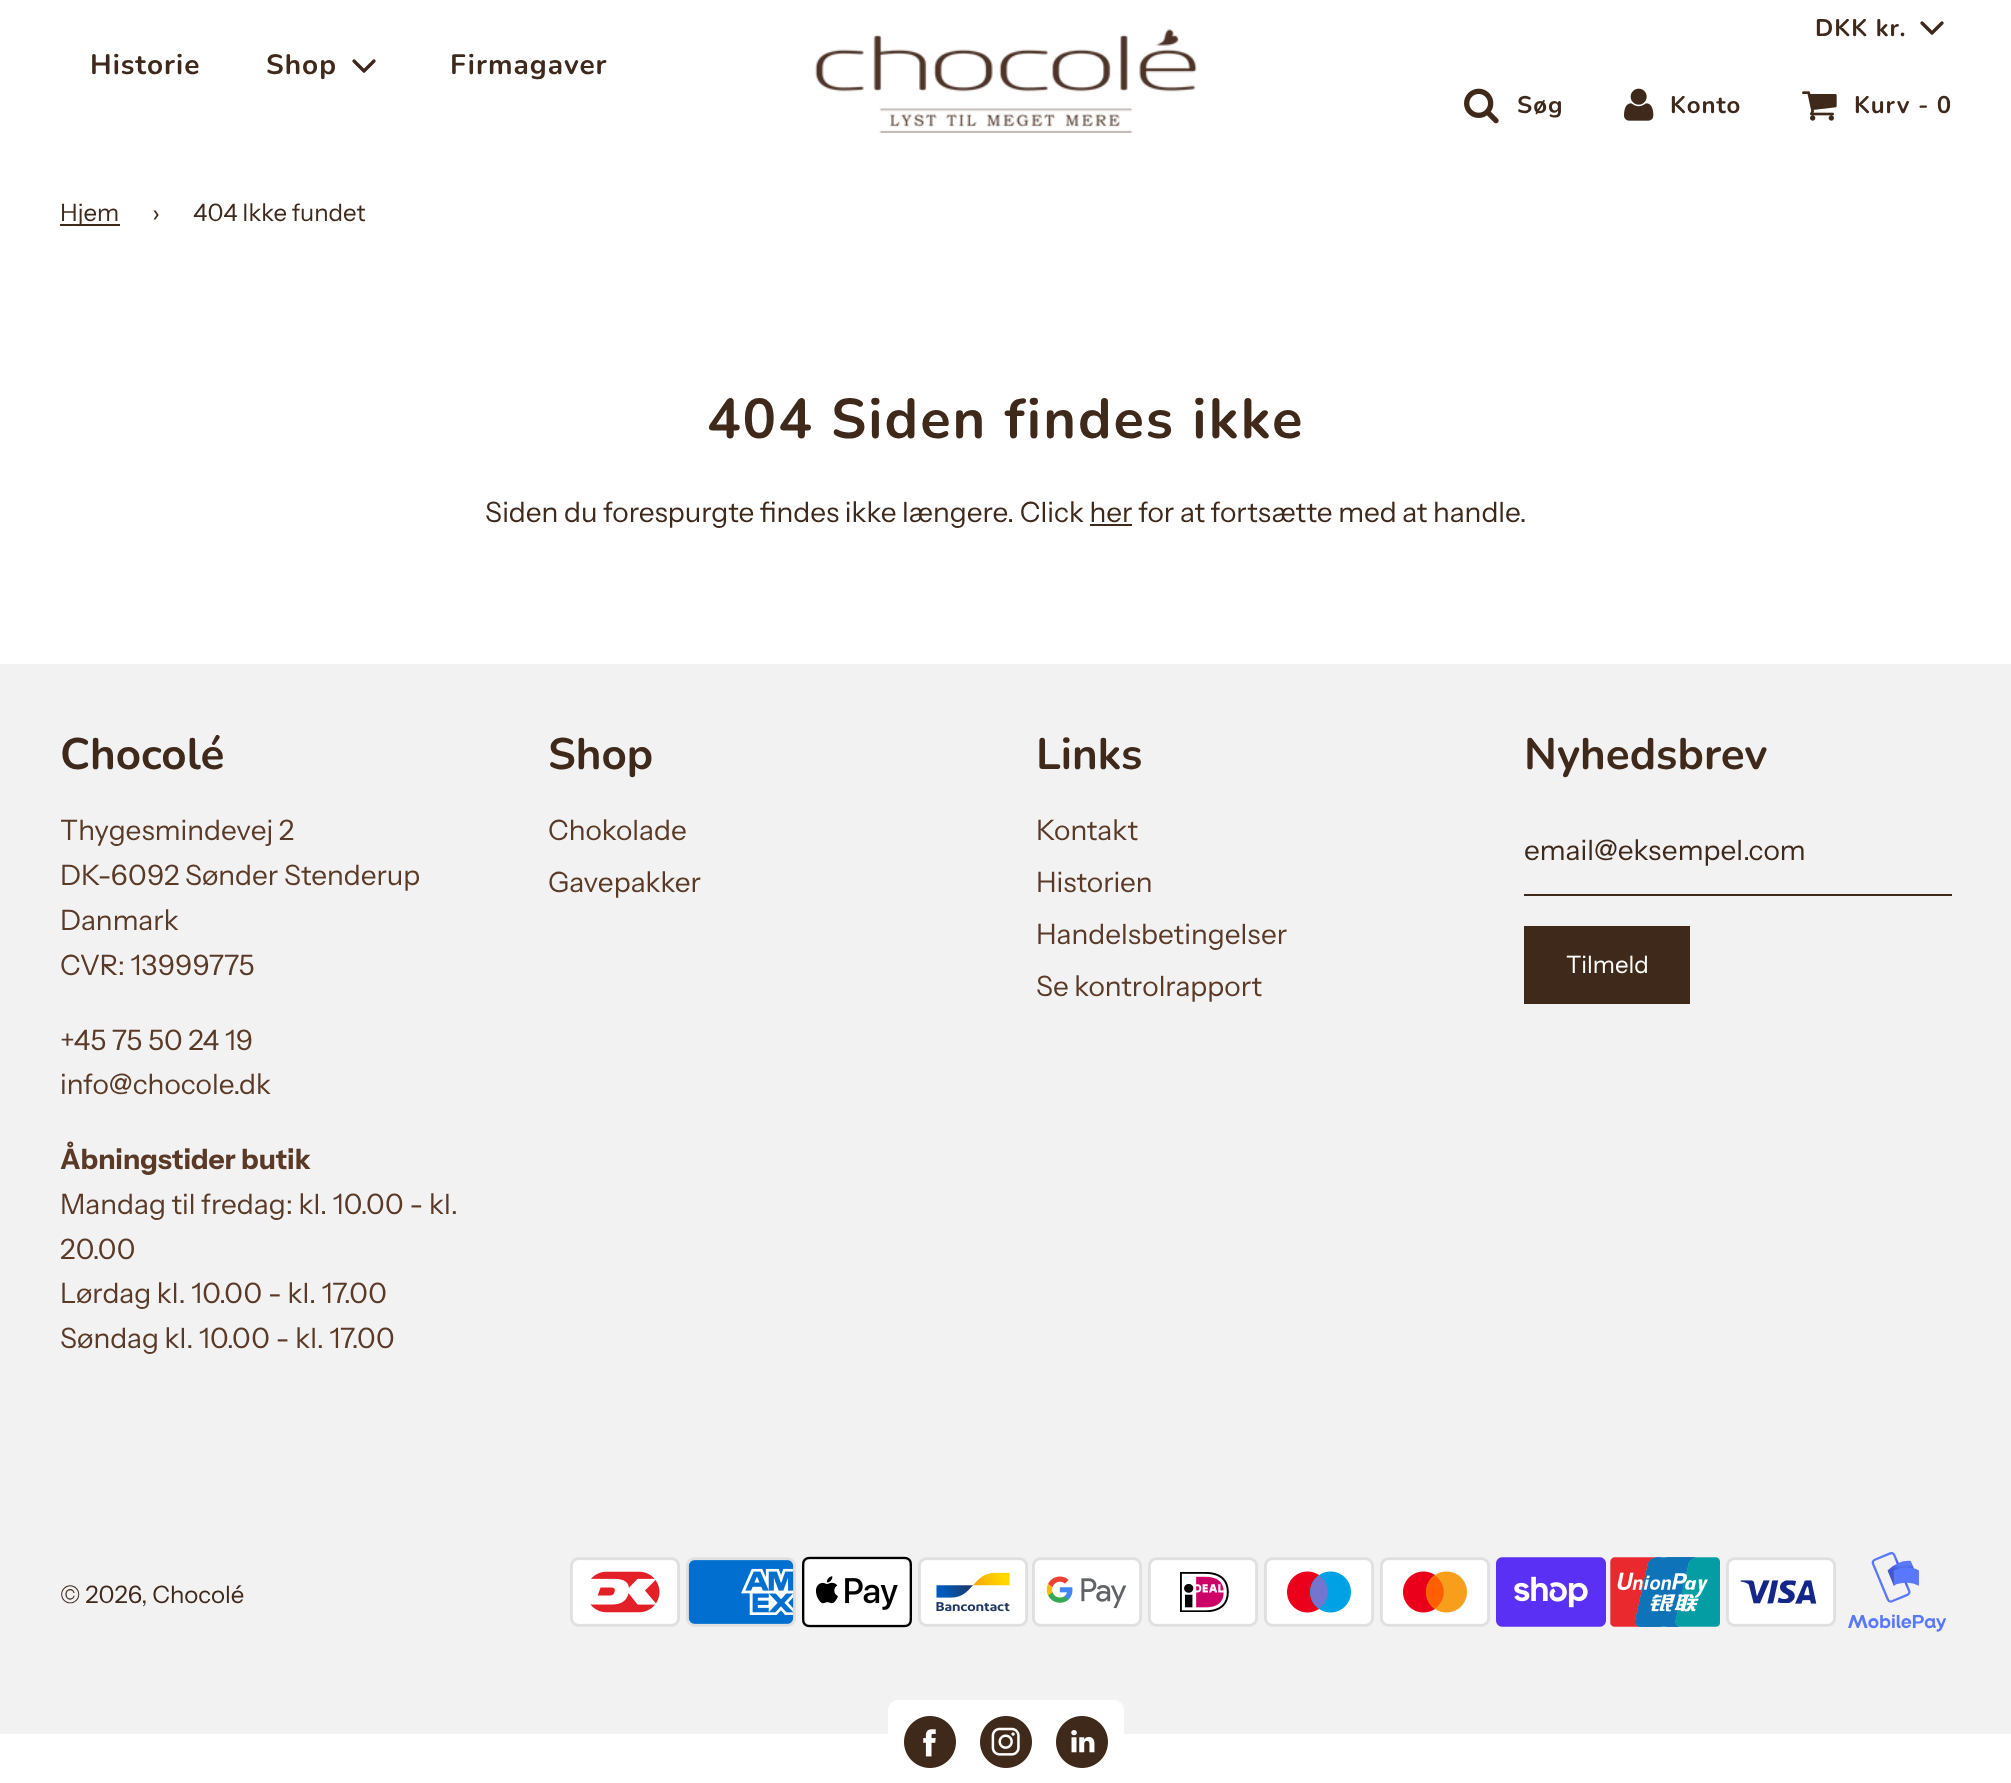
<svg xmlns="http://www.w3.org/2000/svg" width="2011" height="1783">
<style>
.a{font:bold 28px Nunito;letter-spacing:1px;fill:#3f291b}
.b{font:bold 24px Nunito;letter-spacing:1px;fill:#3f291b}
.c{font:24px Instrument Sans;fill:#3f291b}
.d{font:bold 56px Nunito;letter-spacing:2px;fill:#3f291b}
.e{font:28px Instrument Sans;fill:#3f291b}
.f{font:bold 44px Nunito;fill:#3f291b}
.g{font:28px Instrument Sans;fill:#5a3a26}
.h{font:bold 28px Instrument Sans;fill:#5a3a26}
.i{font:24px Instrument Sans;fill:#fff}
</style>
<rect width="100%" height="100%" fill="#fff"/>
<path fill="none" stroke="#3f291b" stroke-width="3.3" stroke-linecap="round" stroke-linejoin="round" d="M354 61l10 10l10-10"/>
<image href="1.png" x="815" y="29" width="382" height="104"/>
<path fill="none" stroke="#3f291b" stroke-width="3.3" stroke-linecap="round" stroke-linejoin="round" d="M1922 23l10 10l10-10"/>
<image href="2.png" x="1464" y="88" width="35" height="36"/>
<image href="3.png" x="1624" y="88" width="30" height="33"/>
<image href="4.png" x="1802" y="91" width="35" height="30"/>
<path fill="#3f291b" d="M60 224h60v2H60z"/>
<path fill="#3f291b" d="M1090 524h42v2H1090z"/>
<path fill="#f2f2f2" d="M0 664h2011v1070H0z"/>
<path fill="#3f291b" d="M1524 894h428v2H1524z"/>
<path fill="#3f291b" d="M1524 926h166v78H1524z"/>
<image href="5.png" x="570" y="1557" width="110" height="70"/>
<image href="6.png" x="686" y="1557" width="110" height="70"/>
<image href="7.png" x="802" y="1556" width="110" height="72"/>
<image href="8.png" x="918" y="1557" width="110" height="70"/>
<image href="9.png" x="1032" y="1557" width="110" height="70"/>
<image href="10.png" x="1148" y="1557" width="110" height="70"/>
<image href="11.png" x="1264" y="1557" width="110" height="70"/>
<image href="12.png" x="1380" y="1557" width="110" height="70"/>
<image href="13.png" x="1496" y="1557" width="110" height="70"/>
<image href="14.png" x="1610" y="1557" width="110" height="70"/>
<image href="15.png" x="1726" y="1557" width="110" height="70"/>
<image href="16.png" x="1848" y="1552" width="98" height="80"/>
<rect fill="#fff" x="888" y="1700" width="236" height="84" rx="10"/>
<image href="17.png" x="904" y="1716" width="52" height="52"/>
<image href="18.png" x="980" y="1716" width="52" height="52"/>
<image href="19.png" x="1056" y="1716" width="52" height="52"/>
<text class="a" x="90" y="74">Historie</text>
<text class="a" x="266" y="74">Shop</text>
<text class="a" x="450" y="74">Firmagaver</text>
<text class="b" x="1815" y="36">DKK kr.</text>
<text class="b" x="1517" y="113">Søg</text>
<text class="b" x="1670" y="113">Konto</text>
<text class="b" x="1854" y="113">Kurv - 0</text>
<text class="c" x="60" y="221">Hjem</text>
<text class="c" x="152" y="221">›</text>
<text class="c" x="193" y="221">404 Ikke fundet</text>
<text class="d" x="707" y="438">404 Siden findes ikke</text>
<text class="e" x="485" y="522">Siden du forespurgte findes ikke længere. Click her for at fortsætte med at handle.</text>
<text class="f" x="60" y="769">Chocolé</text>
<text class="g" x="60" y="840">Thygesmindevej 2</text>
<text class="g" x="60" y="885">DK-6092 Sønder Stenderup</text>
<text class="g" x="60" y="930">Danmark</text>
<text class="g" x="60" y="975">CVR: 13999775</text>
<text class="g" x="60" y="1050">+45 75 50 24 19</text>
<text class="g" x="60" y="1094">info@chocole.dk</text>
<text class="h" x="60" y="1169">Åbningstider butik</text>
<text class="g" x="60" y="1214">Mandag til fredag: kl. 10.00 - kl.</text>
<text class="g" x="60" y="1259">20.00</text>
<text class="g" x="60" y="1303">Lørdag kl. 10.00 - kl. 17.00</text>
<text class="g" x="60" y="1348">Søndag kl. 10.00 - kl. 17.00</text>
<text class="f" x="548" y="769">Shop</text>
<text class="g" x="548" y="840">Chokolade</text>
<text class="g" x="548" y="892">Gavepakker</text>
<text class="f" x="1036" y="769">Links</text>
<text class="g" x="1036" y="840">Kontakt</text>
<text class="g" x="1036" y="892">Historien</text>
<text class="g" x="1036" y="944">Handelsbetingelser</text>
<text class="g" x="1036" y="996">Se kontrolrapport</text>
<text class="f" x="1524" y="769">Nyhedsbrev</text>
<text class="e" x="1524" y="860">email@eksempel.com</text>
<text class="i" x="1566" y="973">Tilmeld</text>
<text class="c" x="60" y="1603">© 2026, Chocolé</text>
</svg>
